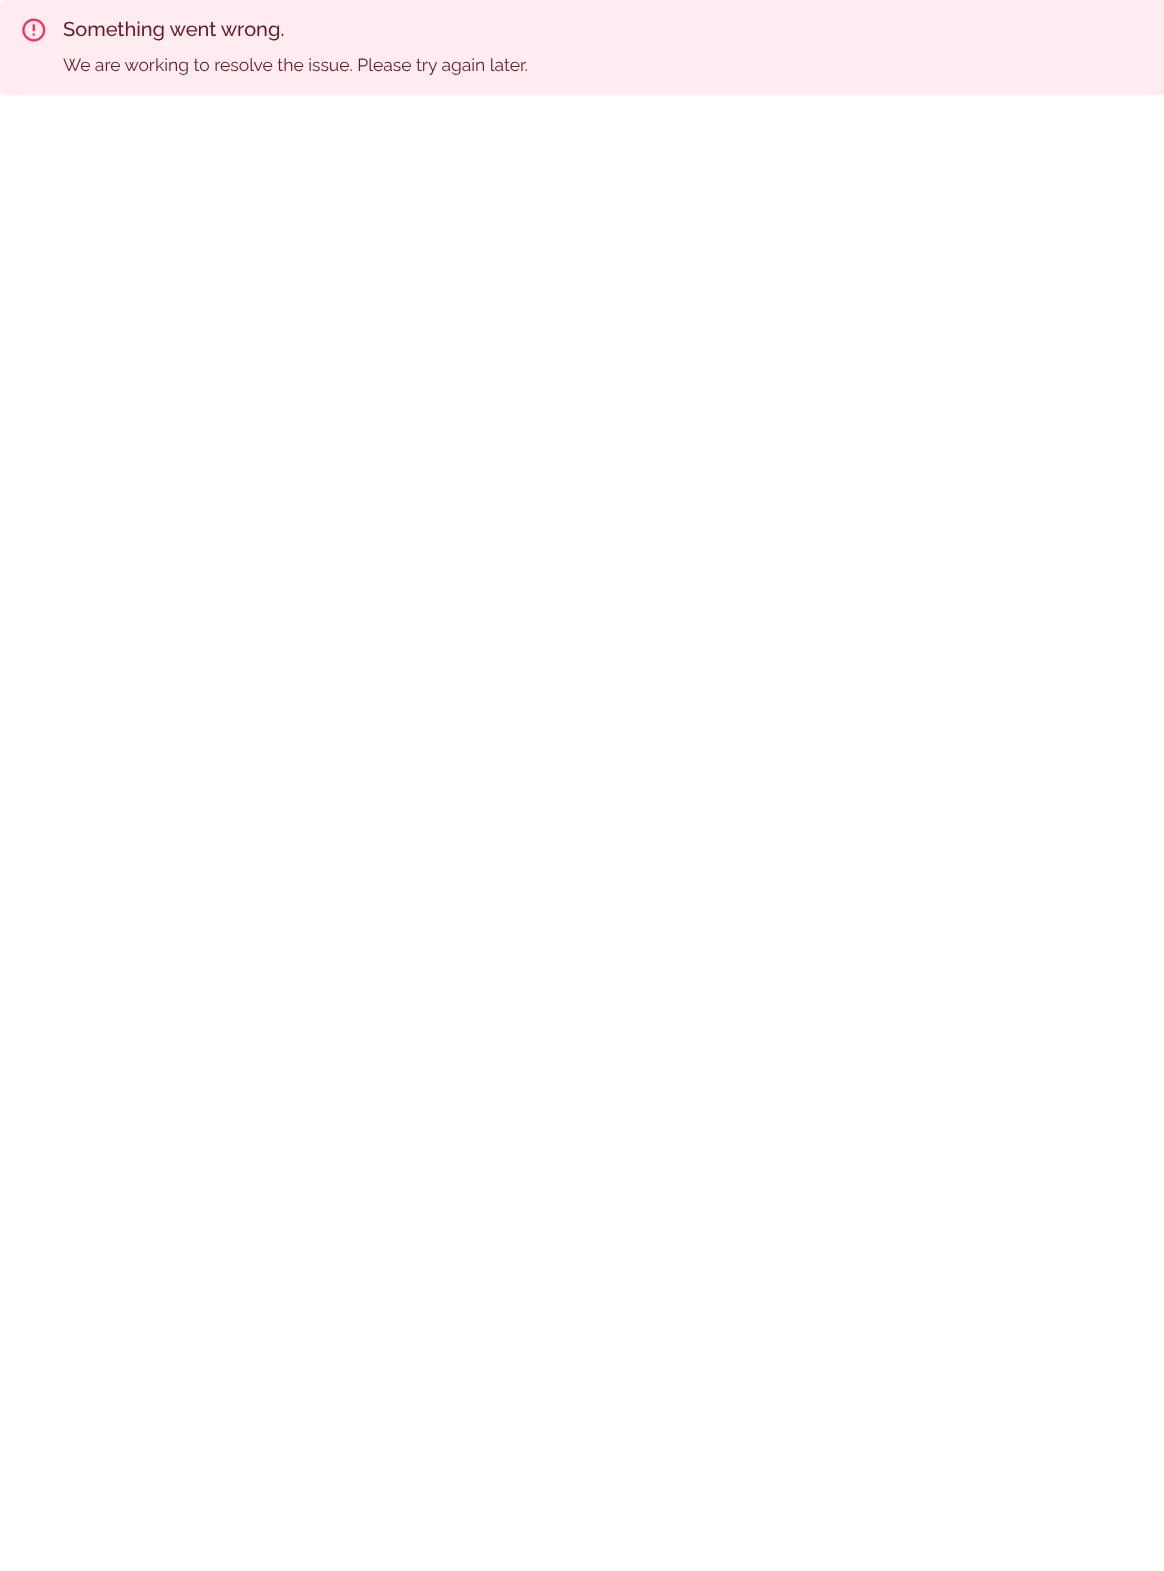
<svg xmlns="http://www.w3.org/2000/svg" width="1164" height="1571">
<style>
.a{font:500 20px Raleway;fill:#661b2a}
.b{font:17.5px Raleway;fill:#661b2a}
</style>
<rect width="100%" height="100%" fill="#fff"/>
<rect fill="#ffecf0" width="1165" height="95" rx="5"/>
<image href="1.png" x="22" y="18" width="24" height="24"/>
<text class="a" x="63" y="36">Something went wrong.</text>
<text class="b" x="63" y="71">We are working to resolve the issue. Please try again later.</text>
</svg>
